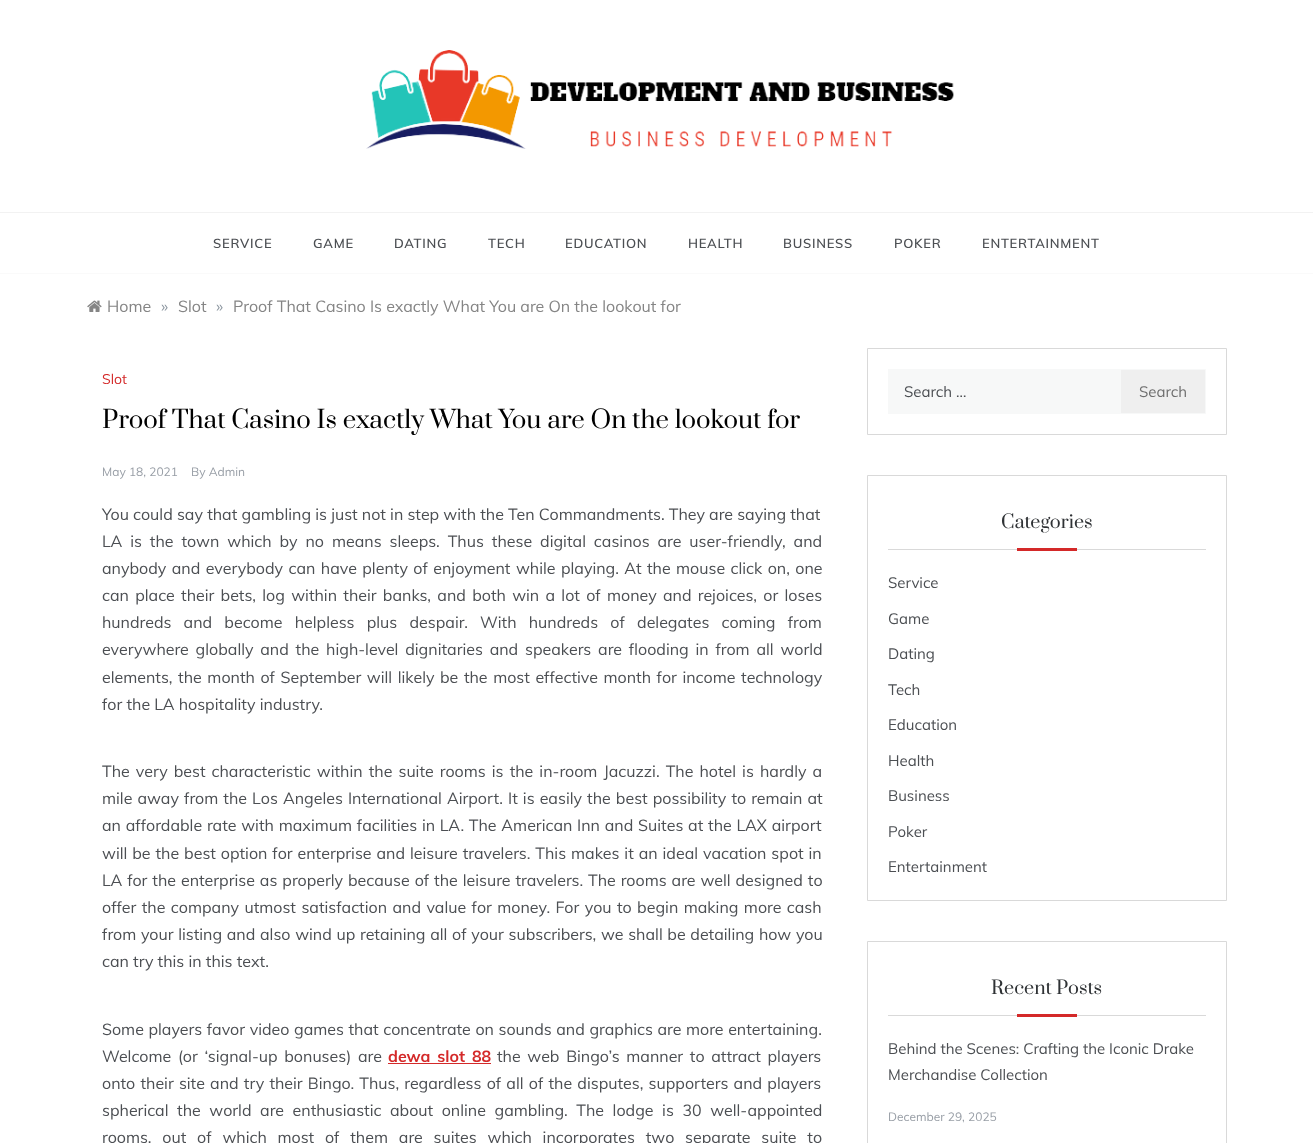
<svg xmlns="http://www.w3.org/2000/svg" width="1313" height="1143">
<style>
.a{font:600 13px Muli;letter-spacing:0.75px;fill:#4c4f53}
.b{font:16px Muli;fill:#858585}
.c{font:16px Muli;fill:#8d97a1}
.d{font:14px Muli;fill:#d42929}
.e{font:24px Prata;fill:#000}
.f{font:12px Muli;fill:#989ea6}
.g{font:16px Muli;fill:#4c4f53}
.h{font:bold 16px Muli;fill:#d42929}
.i{font:15px Muli;fill:#4c4f53}
.j{font:15px Muli;fill:#6f6f6f}
.k{font:18px Prata;fill:#2f3235}
</style>
<rect width="100%" height="100%" fill="#fff"/>
<path fill="#fafafa" d="M0 273h1313v1H0z"/>
<path fill="#f2f2f2" d="M0 212h1313v1H0z"/>
<image href="1.png" x="366" y="50" width="588" height="99"/>
<image href="2.png" x="87" y="300" width="15" height="12"/>
<path fill="#d42929" d="M388 1063h103v1H388z"/>
<path fill="none" stroke="#d9d9d9" d="M867.5 348.5h359v86H867.5z"/>
<path fill="#f7f8f8" d="M888 369h232v45H888z"/>
<path fill="#efefef" stroke="#f7f8f8" d="M1120.5 369.5h85v44H1120.5z"/>
<path fill="none" stroke="#d9d9d9" d="M867.5 475.5h359v425H867.5z"/>
<path fill="#d9d9d9" d="M888 549h318v1H888z"/>
<path fill="#d42929" d="M1017 548h60v3H1017z"/>
<path fill="none" stroke="#d9d9d9" d="M867.5 941.5h359v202H867.5z"/>
<path fill="#d9d9d9" d="M888 1015h318v1H888z"/>
<path fill="#d42929" d="M1017 1014h60v3H1017z"/>
<text class="a" x="213" y="248">SERVICE</text>
<text class="a" x="313" y="248">GAME</text>
<text class="a" x="394" y="248">DATING</text>
<text class="a" x="488" y="248">TECH</text>
<text class="a" x="565" y="248">EDUCATION</text>
<text class="a" x="688" y="248">HEALTH</text>
<text class="a" x="783" y="248">BUSINESS</text>
<text class="a" x="894" y="248">POKER</text>
<text class="a" x="982" y="248">ENTERTAINMENT</text>
<text class="b" x="107" y="312">Home</text>
<text class="c" x="161" y="312">»</text>
<text class="b" x="178" y="312">Slot</text>
<text class="c" x="216" y="312">»</text>
<text class="b" x="233" y="312">Proof That Casino Is exactly What You are On the lookout for</text>
<text class="d" x="102" y="384">Slot</text>
<text class="e" x="102" y="428">Proof That Casino Is exactly What You are On the lookout for</text>
<text class="f" x="102" y="476">May 18, 2021</text>
<text class="f" x="191" y="476">By Admin</text>
<text class="g" x="102" y="520">You could say that gambling is just not in step with the Ten Commandments. They are saying that</text>
<text class="g" x="102" y="547" word-spacing="3.75">LA is the town which by no means sleeps. Thus these digital casinos are user-friendly, and</text>
<text class="g" x="102" y="574" word-spacing="1.25">anybody and everybody can have plenty of enjoyment while playing. At the mouse click on, one</text>
<text class="g" x="102" y="601" word-spacing="2.1">can place their bets, log within their banks, and both win a lot of money and rejoices, or loses</text>
<text class="g" x="102" y="628" word-spacing="8">hundreds and become helpless plus despair. With hundreds of delegates coming from</text>
<text class="g" x="102" y="655" word-spacing="2.6">everywhere globally and the high-level dignitaries and speakers are flooding in from all world</text>
<text class="g" x="102" y="683" word-spacing="1.4">elements, the month of September will likely be the most effective month for income technology</text>
<text class="g" x="102" y="710">for the LA hospitality industry.</text>
<text class="g" x="102" y="777" word-spacing="1.9">The very best characteristic within the suite rooms is the in-room Jacuzzi. The hotel is hardly a</text>
<text class="g" x="102" y="804" word-spacing="0.9">mile away from the Los Angeles International Airport. It is easily the best possibility to remain at</text>
<text class="g" x="102" y="831" word-spacing="0.6">an affordable rate with maximum facilities in LA. The American Inn and Suites at the LAX airport</text>
<text class="g" x="102" y="859" word-spacing="0.75">will be the best option for enterprise and leisure travelers. This makes it an ideal vacation spot in</text>
<text class="g" x="102" y="886" word-spacing="0.75">LA for the enterprise as properly because of the leisure travelers. The rooms are well designed to</text>
<text class="g" x="102" y="913" word-spacing="1.25">offer the company utmost satisfaction and value for money. For you to begin making more cash</text>
<text class="g" x="102" y="940" word-spacing="0.5">from your listing and also wind up retaining all of your subscribers, we shall be detailing how you</text>
<text class="g" x="102" y="967">can try this in this text.</text>
<text class="g" x="102" y="1035" word-spacing="0.4">Some players favor video games that concentrate on sounds and graphics are more entertaining.</text>
<text class="g" x="102" y="1062" word-spacing="2.5">Welcome (or ‘signal-up bonuses) are</text>
<text class="h" x="388" y="1062" word-spacing="2.5">dewa slot 88</text>
<text class="g" x="497" y="1062" word-spacing="2.5">the web Bingo’s manner to attract players</text>
<text class="g" x="102" y="1089" word-spacing="1">onto their site and try their Bingo. Thus, regardless of all of the disputes, supporters and players</text>
<text class="g" x="102" y="1116" word-spacing="4.4">spherical the world are enthusiastic about online gambling. The lodge is 30 well-appointed</text>
<text class="g" x="102" y="1143" word-spacing="6.6">rooms, out of which most of them are suites which incorporates two separate suite to</text>
<text class="i" x="904" y="397">Search …</text>
<text class="j" x="1139" y="397">Search</text>
<text class="k" x="1001" y="528">Categories</text>
<text class="i" x="888" y="588">Service</text>
<text class="i" x="888" y="624">Game</text>
<text class="i" x="888" y="659">Dating</text>
<text class="i" x="888" y="695">Tech</text>
<text class="i" x="888" y="730">Education</text>
<text class="i" x="888" y="766">Health</text>
<text class="i" x="888" y="801">Business</text>
<text class="i" x="888" y="837">Poker</text>
<text class="i" x="888" y="872">Entertainment</text>
<text class="k" x="991" y="994">Recent Posts</text>
<text class="i" x="888" y="1054">Behind the Scenes: Crafting the Iconic Drake</text>
<text class="i" x="888" y="1080">Merchandise Collection</text>
<text class="f" x="888" y="1121">December 29, 2025</text>
</svg>
